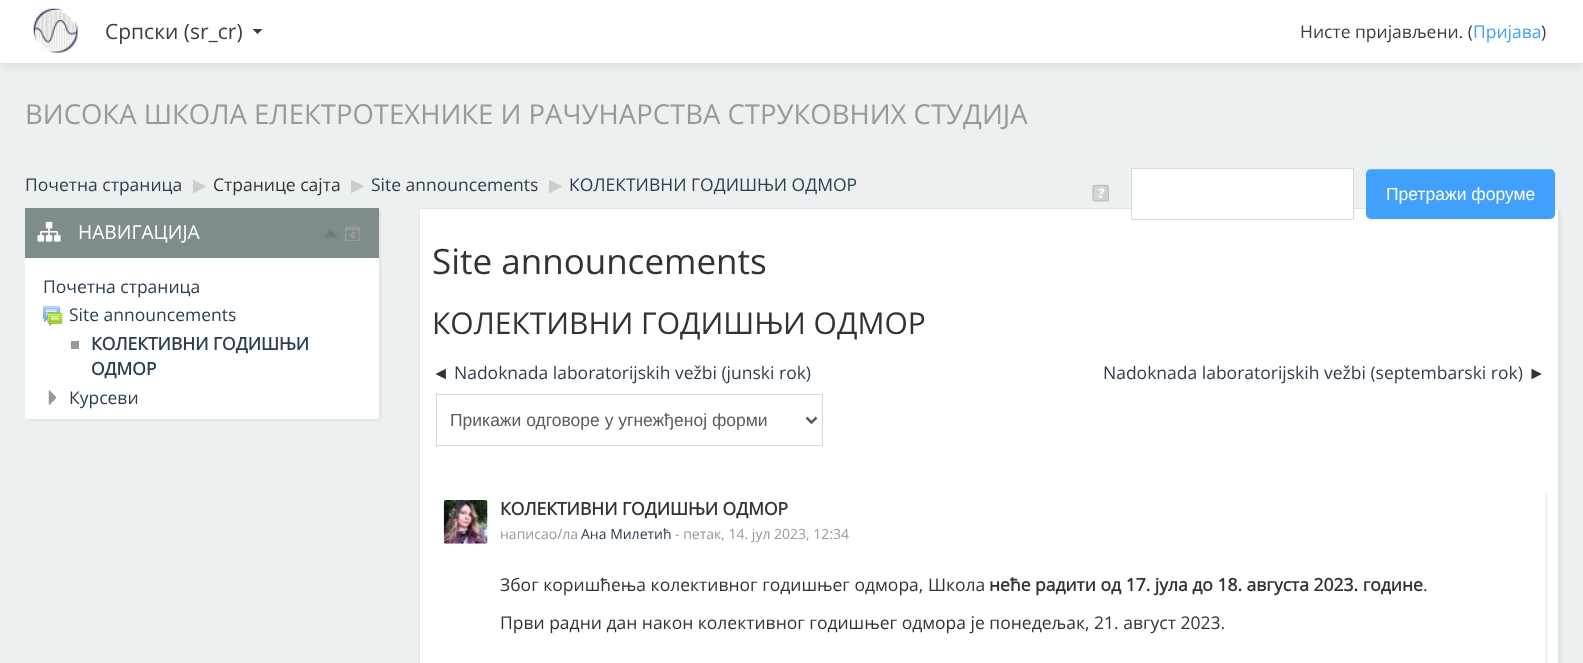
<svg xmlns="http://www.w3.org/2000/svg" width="1583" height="663">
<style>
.a{font:21px Open Sans;fill:#3d3d3d}
.b{font:17.5px Open Sans;fill:#3d3d3d}
.c{font:17.5px Open Sans;fill:#41a0fb}
.d{font:27.5px Open Sans;fill:#999}
.e{font:17.5px Open Sans;fill:#2c3e50}
.f{font:17.5px DejaVu Sans;fill:#ccc}
.g{font:17.5px Open Sans;fill:#333}
.h{font:17.5px Liberation Sans;fill:#fff}
.i{font:19.25px Open Sans;fill:#fff}
.j{font:bold 17.5px Open Sans;fill:#2c3e50}
.k{font:35px Open Sans;fill:#333}
.l{font:30px Open Sans;fill:#333}
.m{font:17.5px Liberation Sans;fill:#333}
.n{font:17.5px Liberation Sans;fill:#5c5c5c}
.o{font:bold 17.5px Open Sans;fill:#333}
.p{font:14px Open Sans;fill:#999}
.q{font:14px Open Sans;fill:#2c3e50}
</style>
<defs>
<clipPath id="clip1"><path d="M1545 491h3v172H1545z"/></clipPath>
</defs>
<rect width="100%" height="100%" fill="#ecf0f1"/>
<path fill="#0000001a" filter="blur(6px)" d="M0 1h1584v63H0z"/>
<path fill="#fff" d="M0 0h1583v63H0z"/>
<image href="1.png" x="33" y="8" width="45" height="45"/>
<path fill="#3d3d3d" d="M252.5 29h10l-5 5z"/>
<image href="2.png" x="1092" y="184" width="17" height="18"/>
<rect fill="#0000000d" filter="blur(1px)" x="421" y="210" width="1140" height="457" rx="1"/>
<rect fill="#fff" stroke="#e3e3e3" x="419.5" y="208.5" width="1139" height="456" rx="0.5"/>
<path fill="#fff" d="M1132 169h221v40H1132z"/>
<path fill="none" stroke="#d9d9d9" d="M1131.5 168.5h222v51H1131.5z"/>
<rect fill="#0000000d" filter="blur(1px)" x="1366" y="170" width="189" height="50" rx="5"/>
<rect fill="#41a0fb" x="1366" y="169" width="189" height="50" rx="5"/>
<path fill="#ffffff33" d="M1371 170h179c3 0 5 2 5 5c0-3-1-5-4-6h-181c-3 1-4 3-4 6c0-3 2-5 5-5z"/>
<rect fill="#0000000d" filter="blur(1px)" x="28" y="210" width="353" height="211" rx="2.5"/>
<rect fill="#fff" x="25" y="208" width="354" height="211" rx="2.5"/>
<path fill="#7f8c8d" d="M25 208h354v50H25z"/>
<image href="3.png" x="37" y="221" width="24" height="21"/>
<image href="4.png" x="323" y="230" width="15" height="8"/>
<image href="5.png" x="345" y="226" width="15" height="15"/>
<image href="6.png" x="43" y="306" width="20" height="20"/>
<path fill="#999" d="M71 341h8v8H71z"/>
<image href="7.png" x="48" y="390" width="9" height="15"/>
<path fill="none" stroke="#d9d9d9" d="M436.5 394.5h386v51H436.5z"/>
<path fill="none" stroke="#5c5c5c" stroke-width="2.5" d="M806.5 417.5l5 5l5-5"/>
<g clip-path="url(#clip1)">
<rect fill="#0000000d" filter="blur(1px)" x="435" y="491" width="1113" height="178" rx="2.5"/>
</g>
<image href="8.png" x="443" y="500" width="45" height="44"/>
<text class="a" x="105" y="39">Српски (sr_cr)</text>
<text class="b" x="1300" y="38">Нисте пријављени. (</text>
<text class="c" x="1473" y="38">Пријава</text>
<text class="b" x="1541" y="38">)</text>
<text class="d" x="25" y="124">ВИСОКА ШКОЛА ЕЛЕКТРОТЕХНИКЕ И РАЧУНАРСТВА СТРУКОВНИХ СТУДИЈА</text>
<text class="e" x="25" y="191">Почетна страница</text>
<text class="f" x="193" y="191">▶︎</text>
<text class="g" x="213" y="191">Странице сајта</text>
<text class="f" x="351" y="191">▶︎</text>
<text class="e" x="371" y="191">Site announcements</text>
<text class="f" x="549" y="191">▶︎</text>
<text class="e" x="569" y="191">КОЛЕКТИВНИ ГОДИШЊИ ОДМОР</text>
<text class="h" x="1386" y="200">Претражи форуме</text>
<text class="i" x="78" y="239">НАВИГАЦИЈА</text>
<text class="e" x="43" y="293">Почетна страница</text>
<text class="e" x="69" y="321">Site announcements</text>
<text class="j" x="91" y="350">КОЛЕКТИВНИ ГОДИШЊИ</text>
<text class="j" x="91" y="375">ОДМОР</text>
<text class="e" x="69" y="404">Курсеви</text>
<text class="k" x="432" y="274">Site announcements</text>
<text class="l" x="432" y="334">КОЛЕКТИВНИ ГОДИШЊИ ОДМОР</text>
<text class="m" x="432" y="379">◄</text>
<text class="e" x="454" y="379">Nadoknada laboratorijskih vežbi (junski rok)</text>
<text class="e" x="1103" y="379">Nadoknada laboratorijskih vežbi (septembarski rok)</text>
<text class="m" x="1528" y="379">►</text>
<text class="n" x="450" y="426">Прикажи одговоре у угнежђеној форми</text>
<text class="o" x="500" y="515">КОЛЕКТИВНИ ГОДИШЊИ ОДМОР</text>
<text class="p" x="500" y="539">написао/ла</text>
<text class="q" x="581" y="539">Ана Милетић</text>
<text class="p" x="675" y="539">- петак, 14. јул 2023, 12:34</text>
<text class="g" x="500" y="591">Због коришћења колективног годишњег одмора, Школа</text>
<text class="o" x="989" y="591">неће радити од 17. јула до 18. августа 2023. године</text>
<text class="g" x="1423" y="591">.</text>
<text class="g" x="500" y="629">Први радни дан након колективног годишњег одмора је понедељак, 21. август 2023.</text>
</svg>
